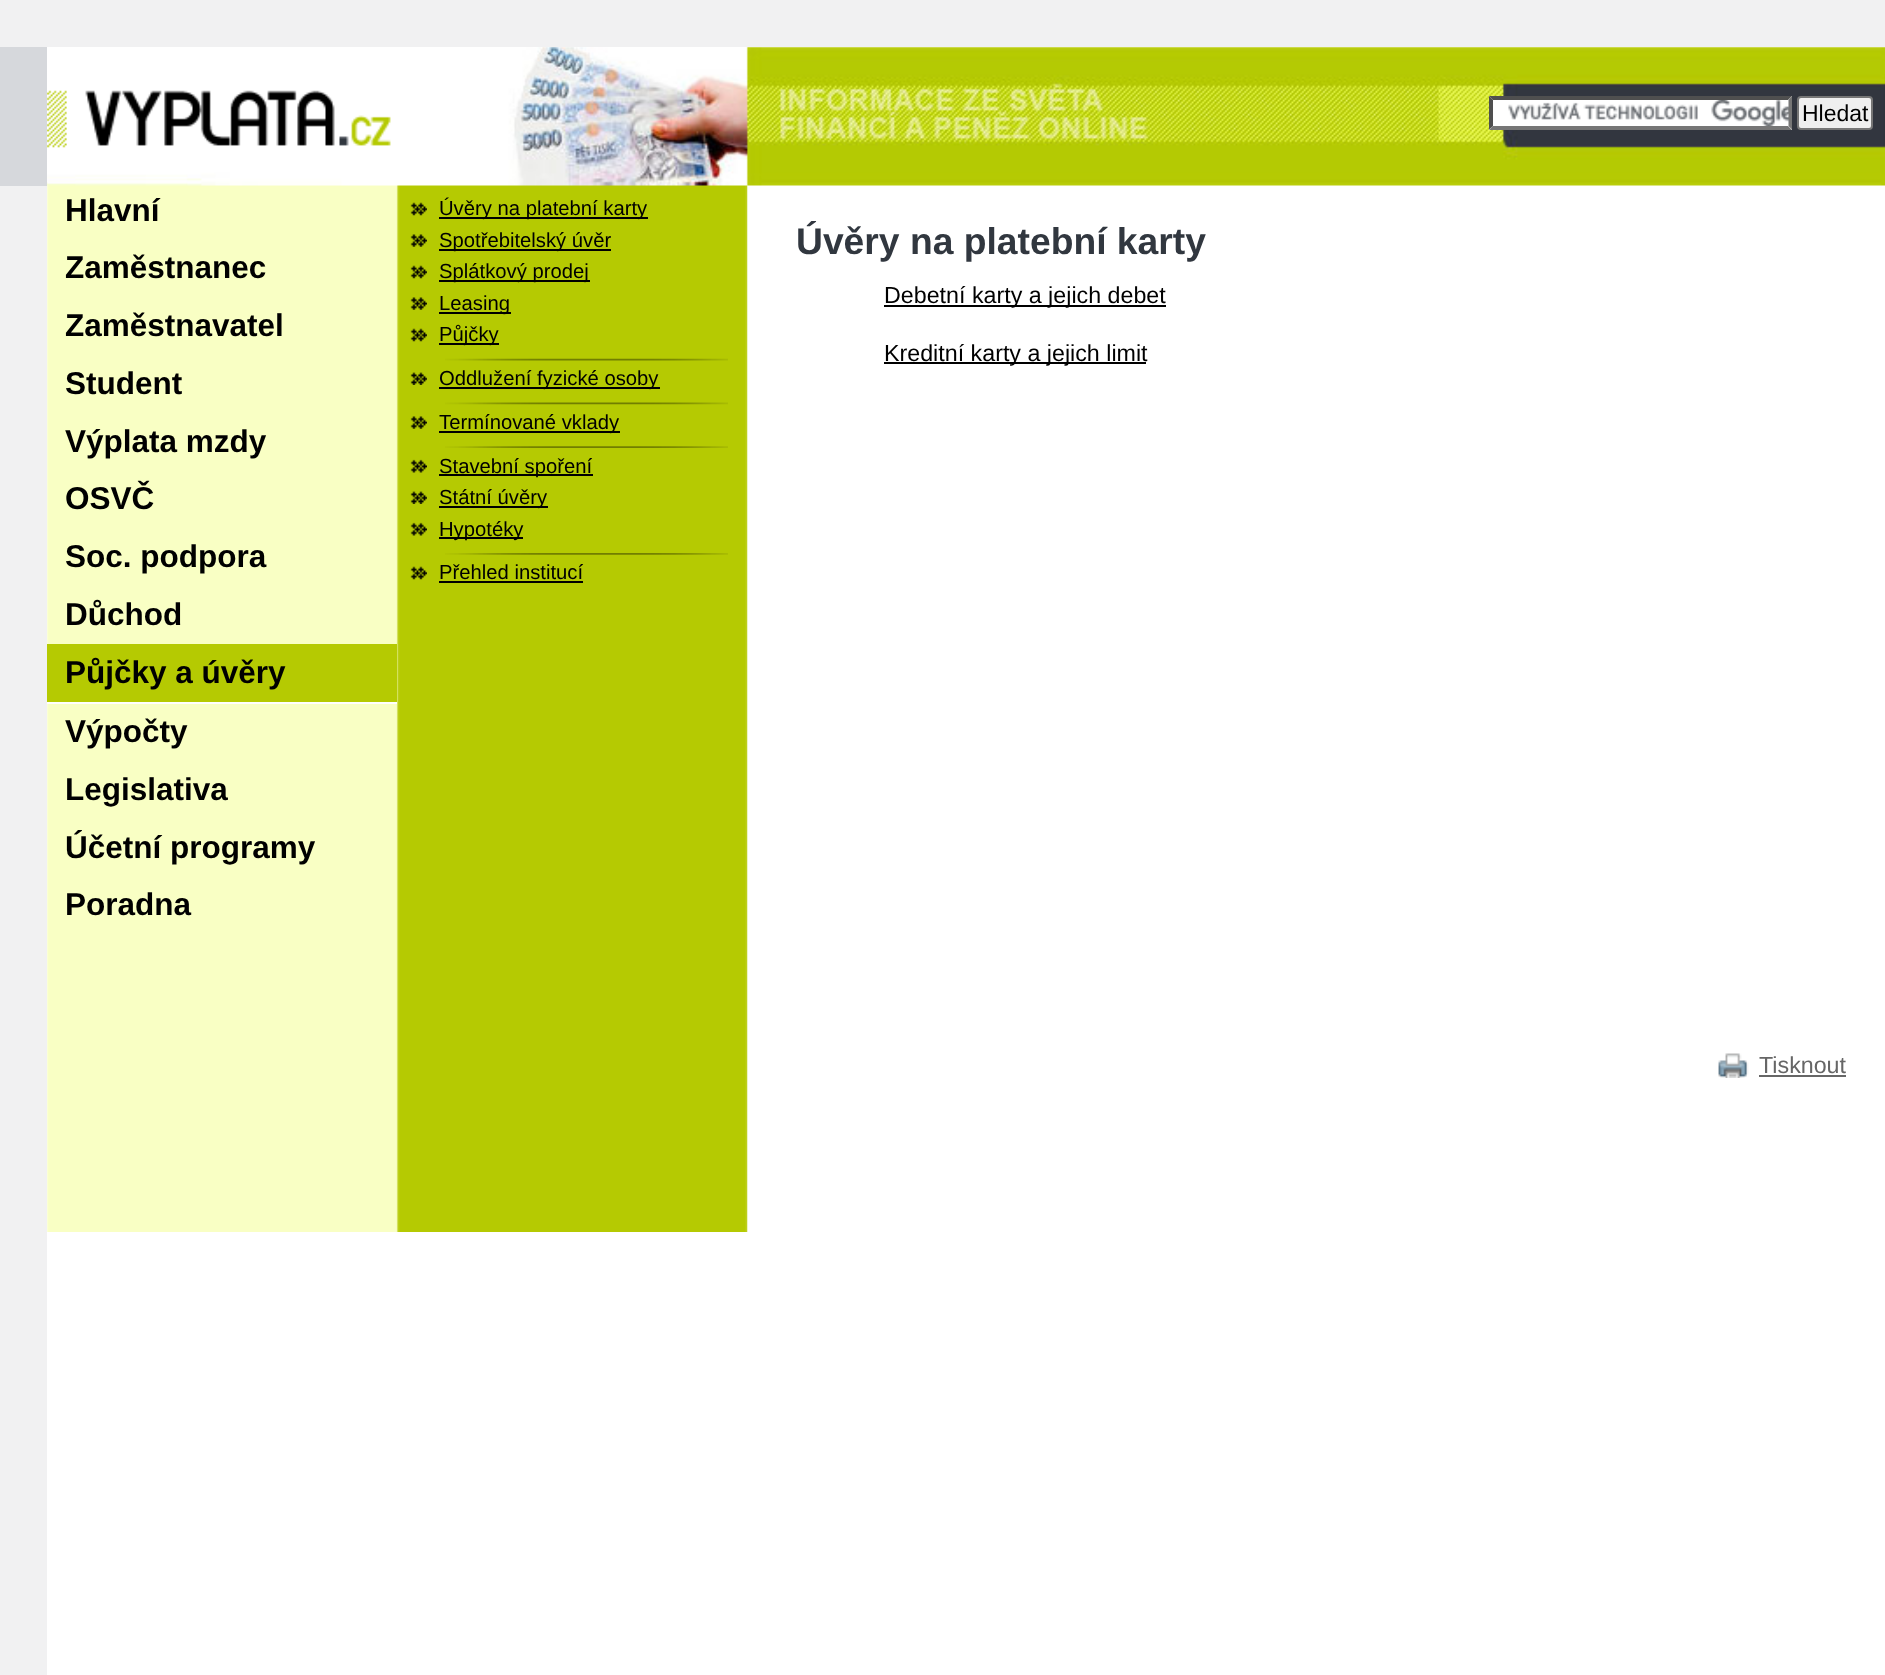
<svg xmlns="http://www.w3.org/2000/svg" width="1885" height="1675">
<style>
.a{font:23px Liberation Sans;fill:#000}
.b{font:bold 31.5px Liberation Sans;fill:#000}
.c{font:20.25px Liberation Sans;fill:#000}
.d{font:bold 37.25px Liberation Sans;fill:#31373f}
.e{font:23.25px Liberation Sans;fill:#000}
.f{font:23.25px Liberation Sans;fill:#666}
</style>
<rect width="100%" height="100%" fill="#f1f1f2"/>
<path fill="#d6d8dc" d="M0 47h47v139H0z"/>
<path fill="#fff" d="M47 47h1838v1628H47z"/>
<image href="4.png" x="47" y="182" width="701" height="1050"/>
<image href="1.png" x="47" y="47" width="1838" height="139"/>
<image href="2.png" x="47" y="90" width="344" height="58"/>
<path fill="#fff" d="M1489 96h303v34H1489z"/>
<image href="3.png" x="1508" y="100" width="281" height="26"/>
<path fill="#4f4f4f" d="M1489 96h303l-4 4h-295z"/>
<path fill="#767676" d="M1792 96v33.5l-3.5-3.5v-26z"/>
<path fill="#767676" d="M1792 130h-303l4-4h295z"/>
<path fill="#4f4f4f" d="M1489 129.5v-33.5l4 4v26z"/>
<rect fill="#efefef" stroke="#767676" stroke-width="2" x="1798" y="97" width="74" height="32" rx="3"/>
<path fill="#b5ca02" d="M47 644h350v58H47z"/>
<path fill="#fff" d="M47 702h350v2H47z"/>
<image href="5.png" x="410" y="202" width="17" height="14"/>
<path fill="#000" d="M439 217h209v2H439z"/>
<image href="6.png" x="410" y="234" width="17" height="13"/>
<path fill="#000" d="M439 249h172v2H439z"/>
<image href="5.png" x="410" y="265" width="17" height="14"/>
<path fill="#000" d="M439 280h151v2H439z"/>
<image href="6.png" x="410" y="297" width="17" height="13"/>
<path fill="#000" d="M439 312h72v2H439z"/>
<image href="5.png" x="410" y="328" width="17" height="14"/>
<path fill="#000" d="M439 343h60v2H439z"/>
<image href="7.png" x="445" y="358" width="283" height="3"/>
<image href="8.png" x="410" y="372" width="17" height="13"/>
<path fill="#000" d="M439 387h221v2H439z"/>
<image href="9.png" x="445" y="402" width="283" height="3"/>
<image href="6.png" x="410" y="416" width="17" height="13"/>
<path fill="#000" d="M439 431h181v2H439z"/>
<image href="10.png" x="445" y="446" width="283" height="2"/>
<image href="11.png" x="410" y="459" width="17" height="14"/>
<path fill="#000" d="M439 474h154v2H439z"/>
<image href="8.png" x="410" y="491" width="17" height="13"/>
<path fill="#000" d="M439 506h109v2H439z"/>
<image href="11.png" x="410" y="522" width="17" height="14"/>
<path fill="#000" d="M439 537h84v2H439z"/>
<image href="12.png" x="445" y="553" width="283" height="2"/>
<image href="5.png" x="410" y="566" width="17" height="14"/>
<path fill="#000" d="M439 581h144v2H439z"/>
<path fill="#000" d="M884 305h282v2H884z"/>
<path fill="#000" d="M884 362h262v2H884z"/>
<image href="13.png" x="1718" y="1053" width="31" height="25"/>
<path fill="#666" d="M1759 1075h87v2H1759z"/>
<text class="a" x="1802" y="121">Hledat</text>
<text class="b" x="65" y="221">Hlavní</text>
<text class="b" x="65" y="278">Zaměstnanec</text>
<text class="b" x="65" y="336">Zaměstnavatel</text>
<text class="b" x="65" y="394">Student</text>
<text class="b" x="65" y="452">Výplata mzdy</text>
<text class="b" x="65" y="509">OSVČ</text>
<text class="b" x="65" y="567">Soc. podpora</text>
<text class="b" x="65" y="625">Důchod</text>
<text class="b" x="65" y="683">Půjčky a úvěry</text>
<text class="b" x="65" y="742">Výpočty</text>
<text class="b" x="65" y="800">Legislativa</text>
<text class="b" x="65" y="858">Účetní programy</text>
<text class="b" x="65" y="915">Poradna</text>
<text class="c" x="439" y="215">Úvěry na platební karty</text>
<text class="c" x="439" y="247">Spotřebitelský úvěr</text>
<text class="c" x="439" y="278">Splátkový prodej</text>
<text class="c" x="439" y="310">Leasing</text>
<text class="c" x="439" y="341">Půjčky</text>
<text class="c" x="439" y="385">Oddlužení fyzické osoby</text>
<text class="c" x="439" y="429">Termínované vklady</text>
<text class="c" x="439" y="473">Stavební spoření</text>
<text class="c" x="439" y="504">Státní úvěry</text>
<text class="c" x="439" y="536">Hypotéky</text>
<text class="c" x="439" y="579">Přehled institucí</text>
<text class="d" x="796" y="254">Úvěry na platební karty</text>
<text class="e" x="884" y="303">Debetní karty a jejich debet</text>
<text class="e" x="884" y="361">Kreditní karty a jejich limit</text>
<text class="f" x="1759" y="1073">Tisknout</text>
</svg>
